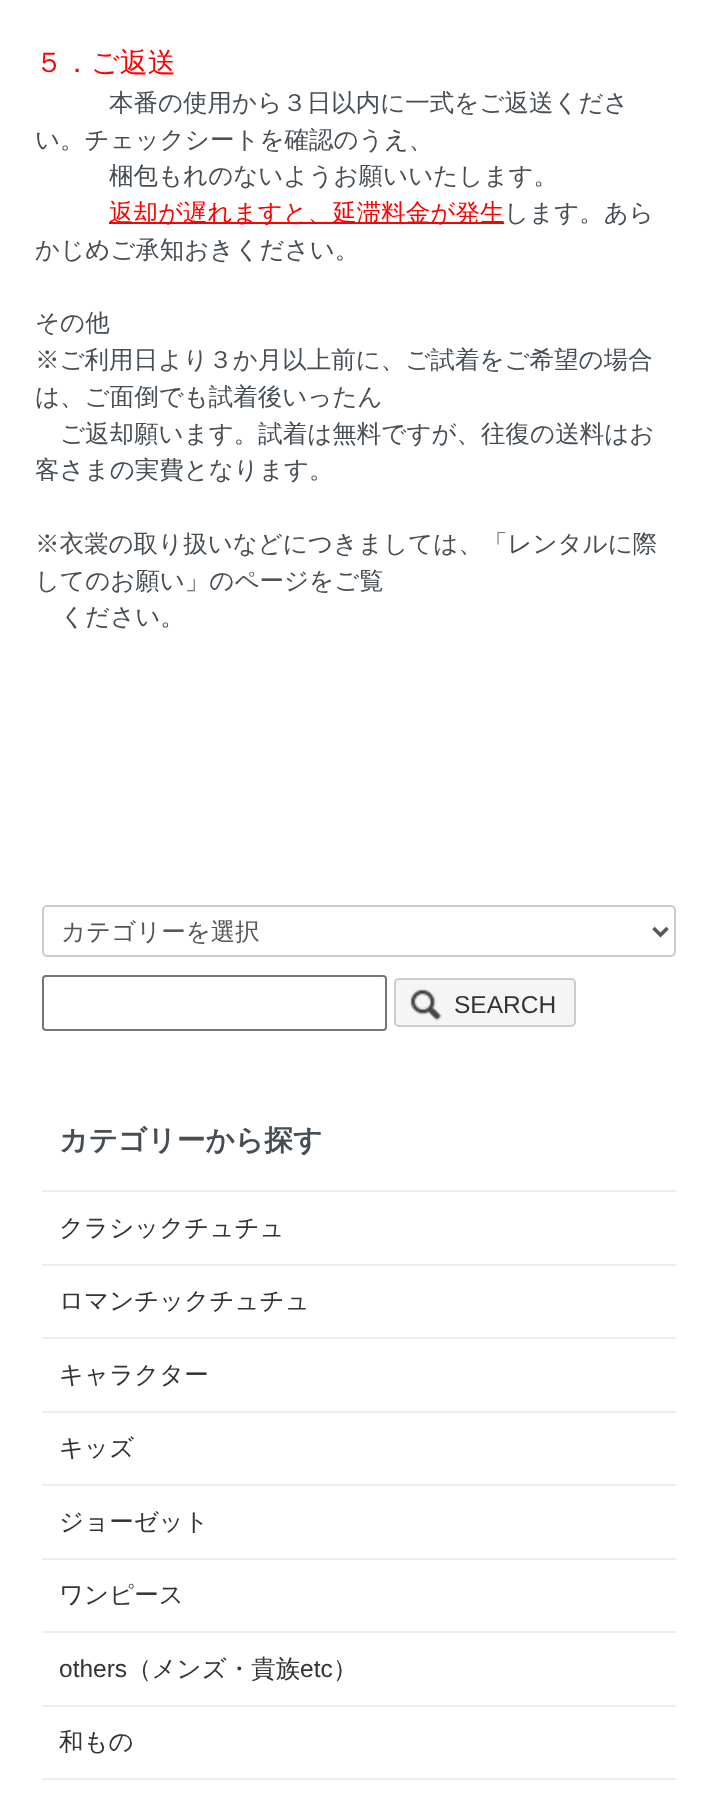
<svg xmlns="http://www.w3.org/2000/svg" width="716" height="1801">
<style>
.a{font:500 28px WenQuanYi Zen Hei;fill:#f00}
.b{font:500 24.5px WenQuanYi Zen Hei;fill:#464e54}
.c{font:500 24.5px WenQuanYi Zen Hei;fill:#f00}
.d{font:500 24.5px WenQuanYi Zen Hei;fill:#555}
.e{font:24.5px Liberation Sans;fill:#333}
.f{font:bold 28.75px WenQuanYi Zen Hei;fill:#464e54}
.g{font:500 24.5px WenQuanYi Zen Hei;fill:#333}
</style>
<rect width="100%" height="100%" fill="#fff"/>
<path fill="#f00" d="M109 222h395v2H109z"/>
<rect fill="none" stroke="#ccc" stroke-width="2" x="43" y="906" width="632" height="50" rx="4"/>
<path fill="none" stroke="#555" stroke-width="3.5" d="M653.5 928l7 7l7-7"/>
<rect fill="none" stroke="#767676" stroke-width="2" x="43" y="976" width="343" height="54" rx="3"/>
<rect fill="#f5f5f5" stroke="#ccc" stroke-width="2" x="395" y="979" width="180" height="47" rx="4"/>
<image href="1.png" x="409" y="988" width="33" height="33"/>
<path fill="#eee" d="M42 1778h634v2H42z"/>
<path fill="#eee" d="M42 1190h634v2H42z"/>
<path fill="#eee" d="M42 1264h634v2H42z"/>
<path fill="#eee" d="M42 1337h634v2H42z"/>
<path fill="#eee" d="M42 1411h634v2H42z"/>
<path fill="#eee" d="M42 1484h634v2H42z"/>
<path fill="#eee" d="M42 1558h634v2H42z"/>
<path fill="#eee" d="M42 1631h634v2H42z"/>
<path fill="#eee" d="M42 1705h634v2H42z"/>
<text class="a" x="35" y="72">５．ご返送</text>
<text class="b" x="109" y="111">本番の使用から３日以内に一式をご返送くださ</text>
<text class="b" x="35" y="148">い。チェックシートを確認のうえ、</text>
<text class="b" x="109" y="184">梱包もれのないようお願いいたします。</text>
<text class="c" x="109" y="221">返却が遅れますと、延滞料金が発生</text>
<text class="b" x="504" y="221">します。あら</text>
<text class="b" x="35" y="258">かじめご承知おきください。</text>
<text class="b" x="35" y="331">その他</text>
<text class="b" x="35" y="368">※ご利用日より３か月以上前に、ご試着をご希望の場合</text>
<text class="b" x="35" y="405">は、ご面倒でも試着後いったん</text>
<text class="b" x="60" y="442">ご返却願います。試着は無料ですが、往復の送料はお</text>
<text class="b" x="35" y="478">客さまの実費となります。</text>
<text class="b" x="35" y="552">※衣裳の取り扱いなどにつきましては、「レンタルに際</text>
<text class="b" x="35" y="589">してのお願い」のページをご覧</text>
<text class="b" x="60" y="625">ください。</text>
<text class="d" x="61" y="940">カテゴリーを選択</text>
<text class="e" x="454" y="1013">SEARCH</text>
<text class="f" x="59" y="1150">カテゴリーから探す</text>
<text class="g" x="59" y="1236">クラシックチュチュ</text>
<text class="g" x="59" y="1309">ロマンチックチュチュ</text>
<text class="g" x="59" y="1383">キャラクター</text>
<text class="g" x="59" y="1456">キッズ</text>
<text class="g" x="59" y="1530">ジョーゼット</text>
<text class="g" x="59" y="1603">ワンピース</text>
<text class="e" x="59" y="1677">others</text>
<text class="g" x="127" y="1677">（メンズ・貴族</text>
<text class="e" x="300" y="1677">etc</text>
<text class="g" x="333" y="1677">）</text>
<text class="g" x="59" y="1750">和もの</text>
</svg>
